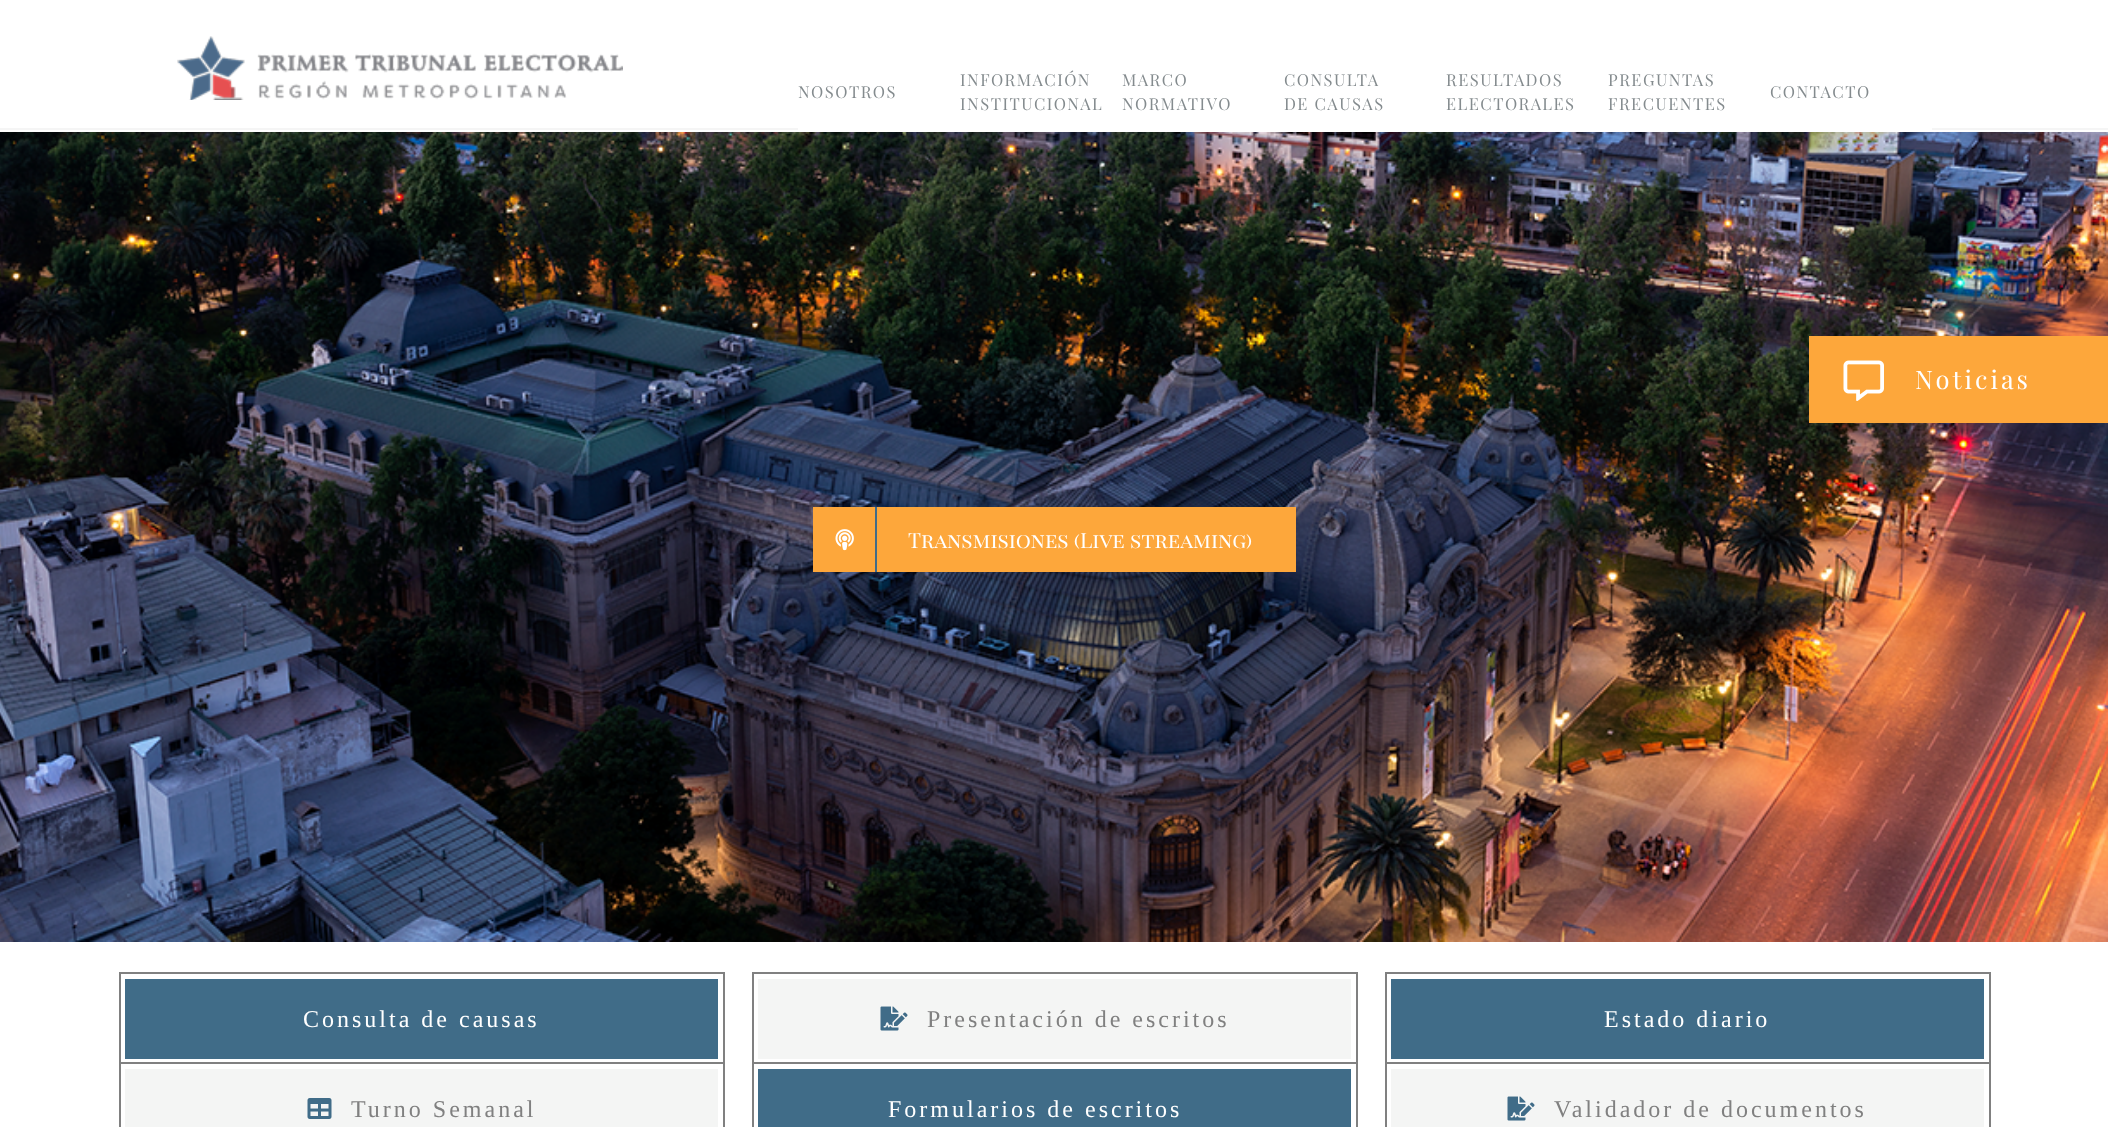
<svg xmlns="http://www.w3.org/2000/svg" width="2108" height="1127">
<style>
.a{font:16.5px Playfair Display;letter-spacing:1.5px;fill:#848b8e}
.b{font:25.5px Playfair Display;letter-spacing:3px;fill:#fff}
.c{font:24px Liberation Serif;letter-spacing:3px;fill:#fff}
.d{font:24px Liberation Serif;letter-spacing:3px;fill:#808080}
.e{font:21px Playfair Display SC;fill:#fff}
</style>
<rect width="100%" height="100%" fill="#fff"/>
<path fill="#f5f5f5" d="M0 128h2108v2H0z"/>
<image href="1.png" x="177" y="36" width="446" height="64"/>
<path fill="#fff" d="M798 128h1134v2H798z"/>
<image href="5.png" x="0" y="132" width="2108" height="810"/>
<path fill="#fda73b" d="M1809 336h299v87H1809z"/>
<image href="2.png" x="1843" y="360" width="41" height="41"/>
<path fill="#406c88" d="M125 979h593v80H125z"/>
<path fill="none" stroke="#808080" stroke-width="2" d="M120 973h604v91H120z"/>
<path fill="#f4f5f4" stroke="#fff" stroke-width="5" d="M122.5 1066.5h598v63H122.5z"/>
<image href="3.png" x="307" y="1098" width="25" height="21"/>
<path fill="none" stroke="#808080" stroke-width="2" d="M120 1063h604v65H120z"/>
<path fill="#f4f5f4" d="M758 979h593v80H758z"/>
<image href="4.png" x="880" y="1006" width="28" height="25"/>
<path fill="none" stroke="#808080" stroke-width="2" d="M753 973h604v91H753z"/>
<path fill="#406c88" stroke="#fff" stroke-width="5" d="M755.5 1066.5h598v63H755.5z"/>
<path fill="none" stroke="#808080" stroke-width="2" d="M753 1063h604v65H753z"/>
<path fill="#406c88" d="M1391 979h593v80H1391z"/>
<path fill="none" stroke="#808080" stroke-width="2" d="M1386 973h604v91H1386z"/>
<path fill="#f4f5f4" stroke="#fff" stroke-width="5" d="M1388.5 1066.5h598v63H1388.5z"/>
<image href="4.png" x="1507" y="1096" width="28" height="25"/>
<path fill="none" stroke="#808080" stroke-width="2" d="M1386 1063h604v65H1386z"/>
<path fill="#fda73b" d="M813 507h483v65H813z"/>
<path fill="#406c88" d="M875 507h2v65H875z"/>
<image href="6.png" x="835" y="529" width="19" height="22"/>
<text class="a" x="798" y="98">NOSOTROS</text>
<text class="a" x="960" y="86">INFORMACIÓN</text>
<text class="a" x="960" y="110">INSTITUCIONAL</text>
<text class="a" x="1122" y="86">MARCO</text>
<text class="a" x="1122" y="110">NORMATIVO</text>
<text class="a" x="1284" y="86">CONSULTA</text>
<text class="a" x="1284" y="110">DE CAUSAS</text>
<text class="a" x="1446" y="86">RESULTADOS</text>
<text class="a" x="1446" y="110">ELECTORALES</text>
<text class="a" x="1608" y="86">PREGUNTAS</text>
<text class="a" x="1608" y="110">FRECUENTES</text>
<text class="a" x="1770" y="98">CONTACTO</text>
<text class="b" x="1915" y="389">Noticias</text>
<text class="c" x="303" y="1027">Consulta de causas</text>
<text class="d" x="351" y="1117">Turno Semanal</text>
<text class="d" x="927" y="1027">Presentación de escritos</text>
<text class="c" x="888" y="1117">Formularios de escritos</text>
<text class="c" x="1604" y="1027">Estado diario</text>
<text class="d" x="1554" y="1117">Validador de documentos</text>
<text class="e" x="908" y="548">Transmisiones (Live streaming)</text>
</svg>
